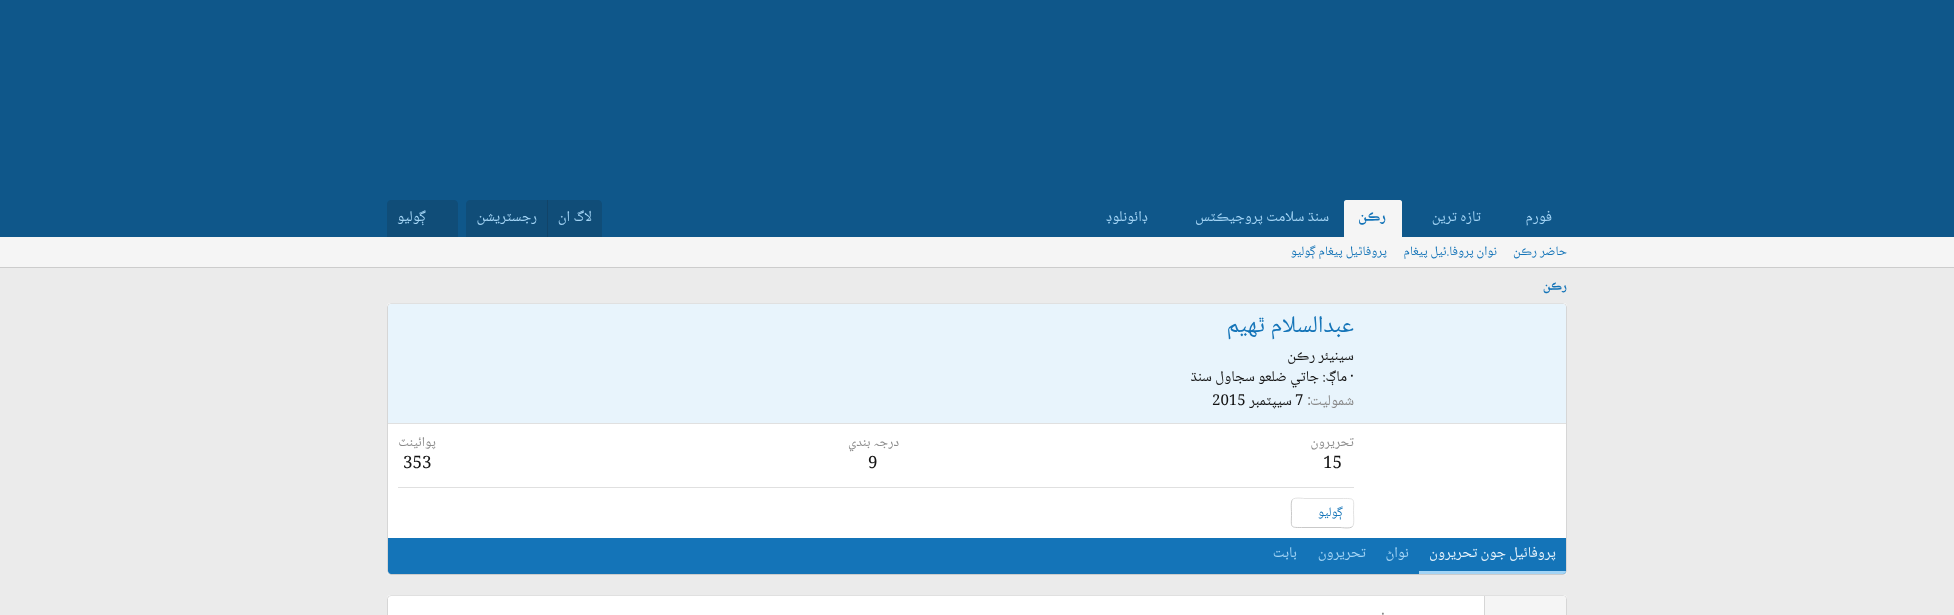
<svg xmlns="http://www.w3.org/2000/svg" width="1954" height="615">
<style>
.a{font:15px Noto Naskh Arabic;direction:rtl;fill:#a3d4f5}
.b{font:bold 15px Noto Naskh Arabic;direction:rtl;fill:#1474b8}
.c{font:13px Noto Naskh Arabic;direction:rtl;fill:#1474b8}
.d{font:bold 13px Noto Naskh Arabic;direction:rtl;fill:#1474b8}
.e{font:24px Noto Naskh Arabic;direction:rtl;fill:#1474b8}
.f{font:15px Noto Naskh Arabic;direction:rtl;fill:#141414}
.g{font:15px Noto Naskh Arabic;fill:#141414}
.h{font:15px Noto Naskh Arabic;direction:rtl;fill:#8a8a8a}
.i{font:15px Noto Naskh Arabic;fill:#8a8a8a}
.j{font:13.5px Noto Naskh Arabic;direction:rtl;fill:#8a8a8a}
.k{font:17px Noto Naskh Arabic;fill:#141414}
.l{font:15px Noto Naskh Arabic;direction:rtl;fill:#e8f4fc}
</style>
<rect width="100%" height="100%" fill="#ebebeb"/>
<path fill="#0f578a" d="M0 0h1954v237H0z"/>
<path fill="#f5f5f5" d="M1346 200h54c1 0 2 1 2 2v35h-58v-35c0-1 1-2 2-2z"/>
<path fill="#104d78" d="M470 200h128c2 0 4 2 4 4v33h-136v-33c0-2 2-4 4-4z"/>
<path fill="#114469" d="M547 200h1v37H547z"/>
<path fill="#104d78" d="M391 200h63c2 0 4 2 4 4v33h-71v-33c0-2 2-4 4-4z"/>
<path fill="#f5f5f5" d="M0 237h1954v30H0z"/>
<path fill="#ccc" d="M0 267h1954v1H0z"/>
<rect fill="#fff" x="387" y="303" width="1180" height="272" rx="4"/>
<path fill="none" stroke="#e0e0e0" d="M388.5 304.5l2.5-1h1172l2.5 1"/>
<path fill="none" stroke="#d6d6d6" d="M1565.5 304.5l1 2.5v264l-1 2.5"/>
<path fill="none" stroke="#ccc" d="M1565.5 573.5l-2.5 1h-1172l-2.5-1"/>
<path fill="none" stroke="#d6d6d6" d="M388.5 573.5l-1-2.5v-264l1-2.5"/>
<path fill="#e8f4fc" d="M391 304h1172c1.5 0 3 1.5 3 3v117h-1178v-117c0-1.5 1.5-3 3-3z"/>
<path fill="#e0e0e0" d="M388 423h1178v1H388z"/>
<path fill="#e0e0e0" d="M398 487h956v1H398z"/>
<path fill="none" stroke="#e3e3e3" d="M1292.5 499.5c2.5-2.5 11-1 11.5-1h37c15 0 12.5-1 12.5 14.5c0 3 1 11.5-1 13.5"/>
<path fill="none" stroke="#c9c9c9" d="M1352.5 526.5c-2.5 2.5-11 1-11.5 1h-37c-15 0-12.5 1-12.5-14.5c0-3-1-11.5 1-13.5"/>
<path fill="#1474b8" d="M388 538h1178v33c0 1.5-1.5 3-3 3h-1172c-1.5 0-3-1.5-3-3z"/>
<path fill="#a3d4f5" d="M1419 571h147c0 1.5-1.5 3-3 3h-144z"/>
<rect fill="#fff" x="387" y="595" width="1180" height="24" rx="4"/>
<path fill="none" stroke="#e0e0e0" d="M388.5 596.5l2.5-1h1172l2.5 1"/>
<path fill="none" stroke="#d6d6d6" d="M1565.5 596.5l1 2v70l-1 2"/>
<path fill="none" stroke="#d6d6d6" d="M388.5 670.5l-1-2v-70l1-2"/>
<path fill="#f5f5f5" d="M1484 596h79c1.5 0 3 1.5 3 3v16c0 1.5-1.5 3-3 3h-79z"/>
<path fill="#d6d6d6" d="M1484 596h1v19H1484z"/>
<text class="a" x="1552" y="221">فورم</text>
<text class="a" x="1481" y="221">تازہ ترين</text>
<text class="b" x="1386" y="221">رڪن</text>
<text class="a" x="1329" y="221">سنڌ سلامت پروجيڪٽس</text>
<text class="a" x="1148" y="221">ڊائونلوڊ</text>
<text class="a" x="592" y="221">لاگ ان</text>
<text class="a" x="537" y="221">رجسٽريشن</text>
<text class="a" x="426" y="221">ڳوليو</text>
<text class="c" x="1567" y="255">حاضر رڪن</text>
<text class="c" x="1497" y="255">نوان پروفا.ئيل پيغام</text>
<text class="c" x="1387" y="255">پروفاٿيل پيغام ڳوليو</text>
<text class="d" x="1567" y="290">رڪن</text>
<text class="e" x="1354" y="332">عبدالسلام ٿھيم</text>
<text class="f" x="1354" y="360">سينيئر رڪن</text>
<text class="g" x="1350" y="381">·</text>
<text class="f" x="1347" y="381">ماڳ:</text>
<text class="f" x="1319" y="381">جاتي ضلعو سجاول سنڌ</text>
<text class="h" x="1354" y="405">شموليت</text>
<text class="i" x="1307" y="405">:</text>
<text class="g" x="1295" y="405">7</text>
<text class="f" x="1292" y="405">سيپٽمبر</text>
<text class="g" x="1212" y="405">2015</text>
<text class="j" x="1354" y="446">تحريرون</text>
<text class="k" x="1323" y="468">15</text>
<text class="j" x="899" y="446">درجہ بندي</text>
<text class="k" x="868" y="468">9</text>
<text class="j" x="436" y="446">پوائينٽ</text>
<text class="k" x="403" y="468">353</text>
<text class="c" x="1343" y="516">ڳوليو</text>
<text class="l" x="1556" y="557">پروفائيل جون تحريرون</text>
<text class="a" x="1409" y="557">نواڻ</text>
<text class="a" x="1366" y="557">تحريرون</text>
<text class="a" x="1297" y="557">بابت</text>
<text class="i" x="1381" y="619">·</text>
</svg>
